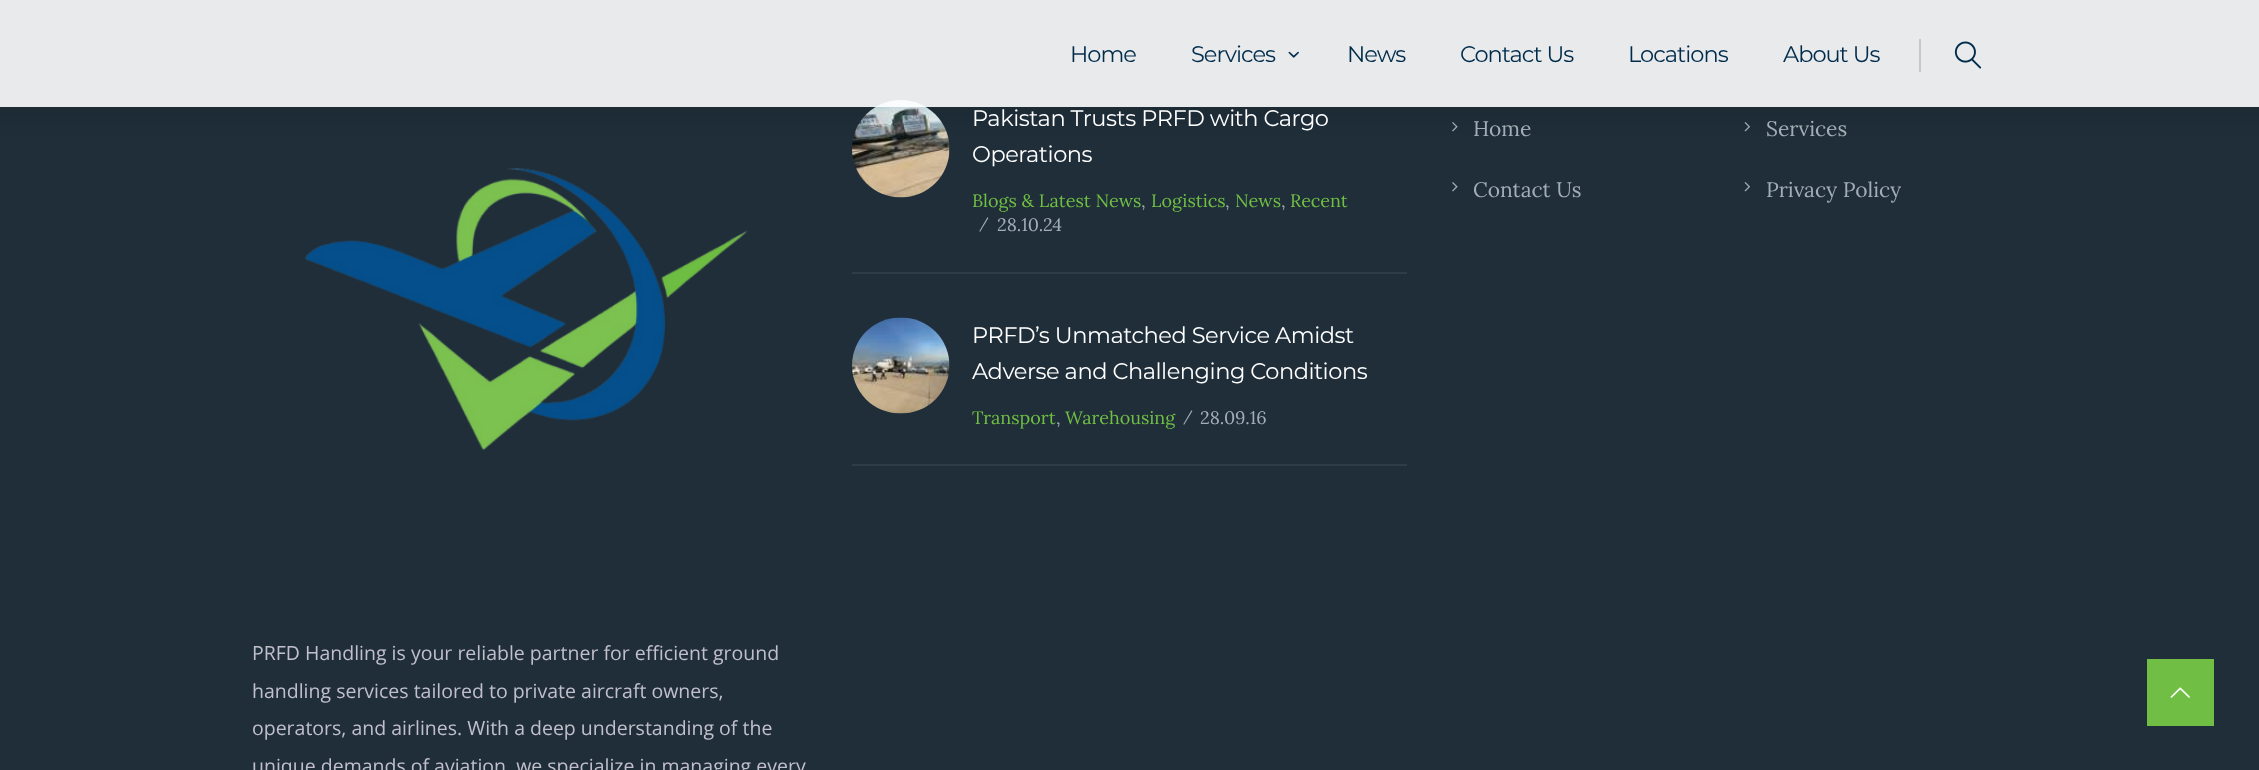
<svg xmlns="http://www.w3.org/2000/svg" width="2259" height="770">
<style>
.a{font:22.5px Montserrat;letter-spacing:-1px;fill:#002c4c}
.b{font:22.5px Montserrat;letter-spacing:-0.45px;fill:#fff}
.c{font:18px Lora;fill:#70bf44}
.d{font:18px Lora;fill:#a2aeb6}
.e{font:14px Lora;fill:#a2aeb6}
.f{font:21px Lora;fill:#a2aeb6}
.g{font:19.5px Open Sans;fill:#c0bfcb}
</style>
<defs>
<clipPath id="clip1"><path d="M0 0h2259v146h-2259zm-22 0h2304v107h-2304z" clip-rule="evenodd"/></clipPath>
</defs>
<rect width="100%" height="100%" fill="#1f2e39"/>
<image href="3.png" x="852" y="100" width="98" height="98"/>
<image href="5.png" x="1452" y="122" width="6" height="10"/>
<image href="6.png" x="1744" y="122" width="6" height="10"/>
<g clip-path="url(#clip1)">
<path fill="#0000000f" filter="blur(7.5px)" d="M-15 15h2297v107H-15z"/>
</g>
<path fill="#ffffffe6" d="M0 0h2259v107H0z"/>
<image href="1.png" x="1288" y="51" width="11" height="7"/>
<path fill="#c8c8c8" d="M1919 39h2v33H1919z"/>
<image href="2.png" x="1954" y="41" width="28" height="28"/>
<path fill="#2d3c47" d="M852 272h555v2H852z"/>
<path fill="#2d3c47" d="M852 464h555v2H852z"/>
<image href="4.png" x="852" y="317" width="98" height="97"/>
<image href="5.png" x="1452" y="182" width="6" height="10"/>
<image href="6.png" x="1744" y="182" width="6" height="10"/>
<image href="7.png" x="305" y="168" width="443" height="283"/>
<path fill="#70bf44" d="M2147 659h67v67H2147z"/>
<image href="8.png" x="2170" y="687" width="20" height="11"/>
<text class="a" x="1070" y="62">Home</text>
<text class="a" x="1191" y="62">Services</text>
<text class="a" x="1347" y="62">News</text>
<text class="a" x="1460" y="62">Contact Us</text>
<text class="a" x="1628" y="62">Locations</text>
<text class="a" x="1783" y="62">About Us</text>
<text class="b" x="972" y="126">Pakistan Trusts PRFD with Cargo</text>
<text class="b" x="972" y="162">Operations</text>
<text class="c" x="972" y="207">Blogs &amp; Latest News</text>
<text class="d" x="1141" y="207">,</text>
<text class="c" x="1151" y="207">Logistics</text>
<text class="d" x="1225" y="207">,</text>
<text class="c" x="1235" y="207">News</text>
<text class="d" x="1281" y="207">,</text>
<text class="c" x="1290" y="207">Recent</text>
<text class="e" x="979" y="228">/</text>
<text class="d" x="997" y="231">28.10.24</text>
<text class="b" x="972" y="343">PRFD’s Unmatched Service Amidst</text>
<text class="b" x="972" y="379">Adverse and Challenging Conditions</text>
<text class="c" x="972" y="424">Transport</text>
<text class="d" x="1056" y="424">,</text>
<text class="c" x="1065" y="424">Warehousing</text>
<text class="e" x="1183" y="421">/</text>
<text class="d" x="1200" y="424">28.09.16</text>
<text class="f" x="1473" y="136">Home</text>
<text class="f" x="1766" y="136">Services</text>
<text class="f" x="1473" y="197">Contact Us</text>
<text class="f" x="1766" y="197">Privacy Policy</text>
<text class="g" x="252" y="660">PRFD Handling is your reliable partner for efficient ground</text>
<text class="g" x="252" y="698">handling services tailored to private aircraft owners,</text>
<text class="g" x="252" y="735">operators, and airlines. With a deep understanding of the</text>
<text class="g" x="252" y="773">unique demands of aviation, we specialize in managing every</text>
</svg>
